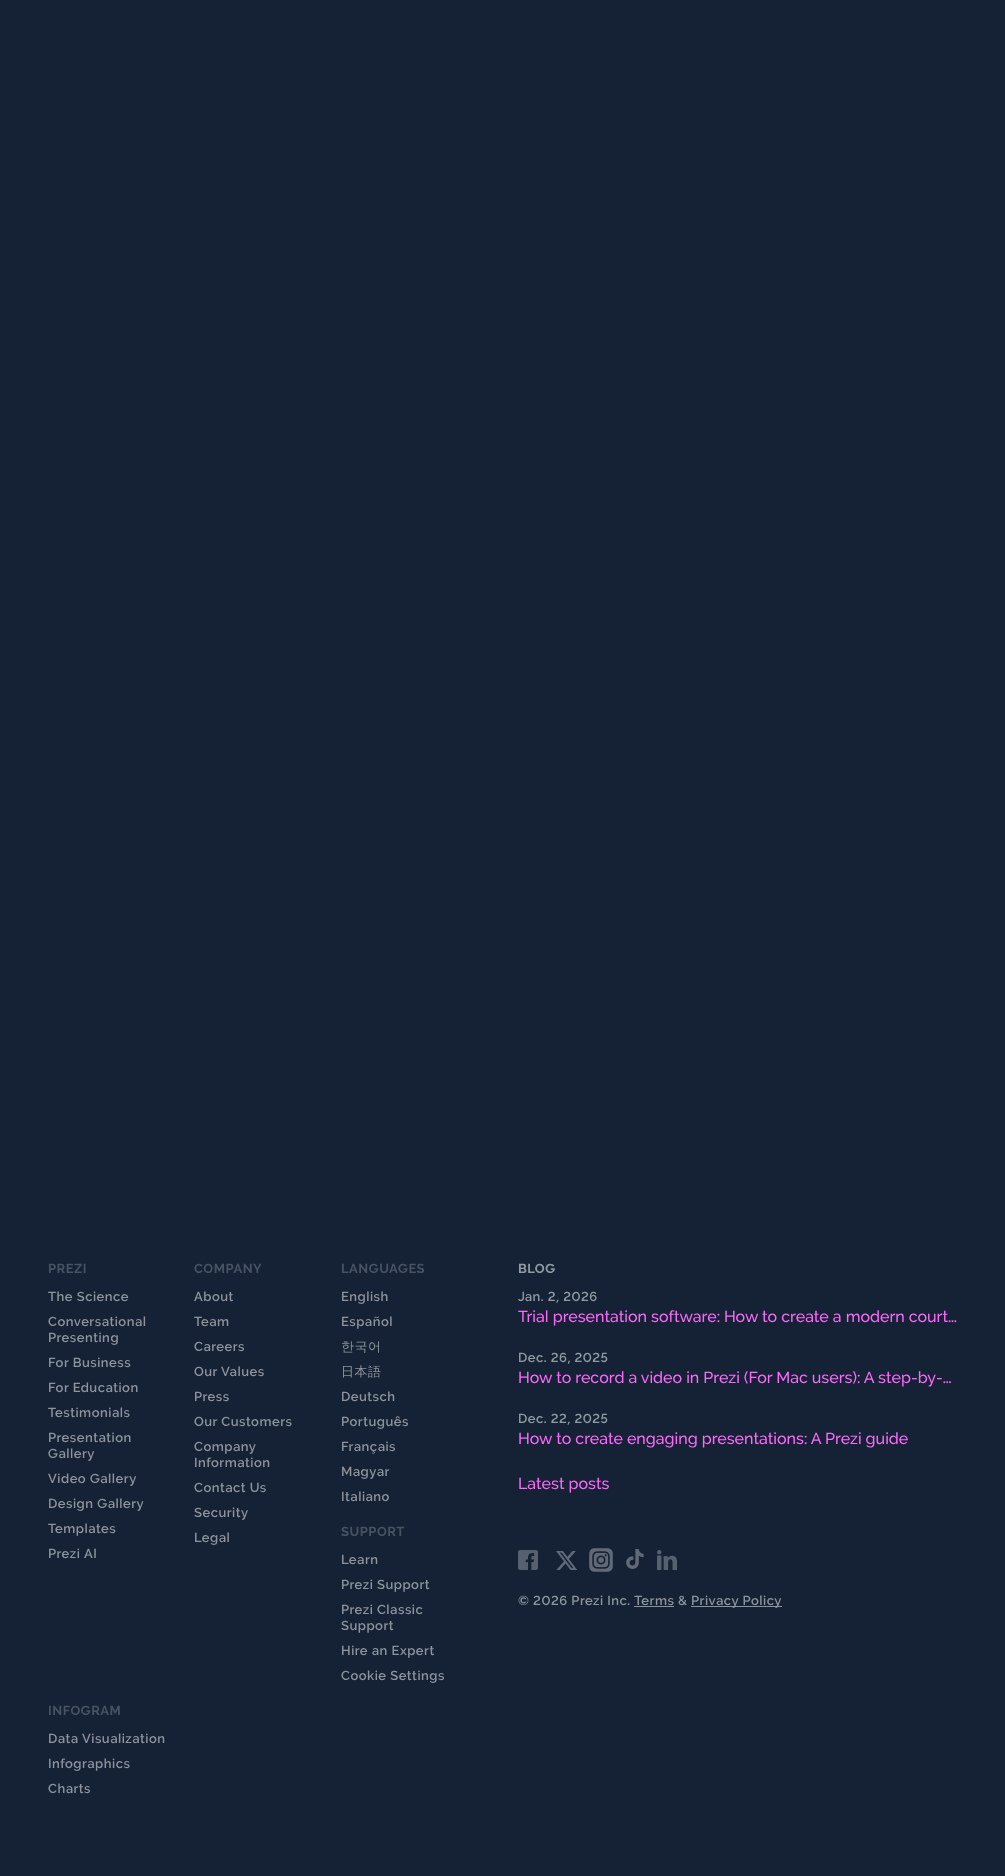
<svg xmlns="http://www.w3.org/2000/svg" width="1005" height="1876">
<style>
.a{font:bold 13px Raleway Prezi;letter-spacing:0.5px;fill:#475262}
.b{font:600 13px Raleway Prezi;letter-spacing:0.5px;fill:#8e939c}
.c{font:500 13px WenQuanYi Zen Hei;letter-spacing:0.5px;fill:#8e939c}
.d{font:bold 13px Raleway Prezi;letter-spacing:0.5px;fill:#929aa3}
.e{font:600 13px Raleway Prezi;letter-spacing:0.5px;fill:#929aa3}
.f{font:500 16px Raleway Prezi;fill:#fd6afa}
</style>
<rect width="100%" height="100%" fill="#152235"/>
<image href="1.png" x="518" y="1550" width="20" height="20"/>
<image href="2.png" x="556" y="1551" width="21" height="19"/>
<image href="3.png" x="589" y="1548" width="24" height="24"/>
<image href="4.png" x="626" y="1549" width="18" height="20"/>
<image href="5.png" x="657" y="1550" width="20" height="20"/>
<path fill="#8e939c" d="M634 1606h40v1H634z"/>
<path fill="#8e939c" d="M691 1606h91v1H691z"/>
<text class="a" x="48" y="1273">PREZI</text>
<text class="b" x="48" y="1301">The Science</text>
<text class="b" x="48" y="1326">Conversational</text>
<text class="b" x="48" y="1342">Presenting</text>
<text class="b" x="48" y="1367">For Business</text>
<text class="b" x="48" y="1392">For Education</text>
<text class="b" x="48" y="1417">Testimonials</text>
<text class="b" x="48" y="1442">Presentation</text>
<text class="b" x="48" y="1458">Gallery</text>
<text class="b" x="48" y="1483">Video Gallery</text>
<text class="b" x="48" y="1508">Design Gallery</text>
<text class="b" x="48" y="1533">Templates</text>
<text class="b" x="48" y="1558">Prezi AI</text>
<text class="a" x="194" y="1273">COMPANY</text>
<text class="b" x="194" y="1301">About</text>
<text class="b" x="194" y="1326">Team</text>
<text class="b" x="194" y="1351">Careers</text>
<text class="b" x="194" y="1376">Our Values</text>
<text class="b" x="194" y="1401">Press</text>
<text class="b" x="194" y="1426">Our Customers</text>
<text class="b" x="194" y="1451">Company</text>
<text class="b" x="194" y="1467">Information</text>
<text class="b" x="194" y="1492">Contact Us</text>
<text class="b" x="194" y="1517">Security</text>
<text class="b" x="194" y="1542">Legal</text>
<text class="a" x="341" y="1273">LANGUAGES</text>
<text class="b" x="341" y="1301">English</text>
<text class="b" x="341" y="1326">Español</text>
<text class="c" x="341" y="1351">한국어</text>
<text class="c" x="341" y="1376">日本語</text>
<text class="b" x="341" y="1401">Deutsch</text>
<text class="b" x="341" y="1426">Português</text>
<text class="b" x="341" y="1451">Français</text>
<text class="b" x="341" y="1476">Magyar</text>
<text class="b" x="341" y="1501">Italiano</text>
<text class="a" x="341" y="1536">SUPPORT</text>
<text class="b" x="341" y="1564">Learn</text>
<text class="b" x="341" y="1589">Prezi Support</text>
<text class="b" x="341" y="1614">Prezi Classic</text>
<text class="b" x="341" y="1630">Support</text>
<text class="b" x="341" y="1655">Hire an Expert</text>
<text class="b" x="341" y="1680">Cookie Settings</text>
<text class="a" x="48" y="1715">INFOGRAM</text>
<text class="b" x="48" y="1743">Data Visualization</text>
<text class="b" x="48" y="1768">Infographics</text>
<text class="b" x="48" y="1793">Charts</text>
<text class="d" x="518" y="1273">BLOG</text>
<text class="e" x="518" y="1301">Jan. 2, 2026</text>
<text class="f" x="518" y="1322">Trial presentation software: How to create a modern court…</text>
<text class="e" x="518" y="1362">Dec. 26, 2025</text>
<text class="f" x="518" y="1383">How to record a video in Prezi (For Mac users): A step-by-…</text>
<text class="e" x="518" y="1423">Dec. 22, 2025</text>
<text class="f" x="518" y="1444">How to create engaging presentations: A Prezi guide</text>
<text class="f" x="518" y="1489">Latest posts</text>
<text class="b" x="518" y="1605">© 2026 Prezi Inc. Terms &amp;</text>
<text class="b" x="691" y="1605">Privacy Policy</text>
</svg>
